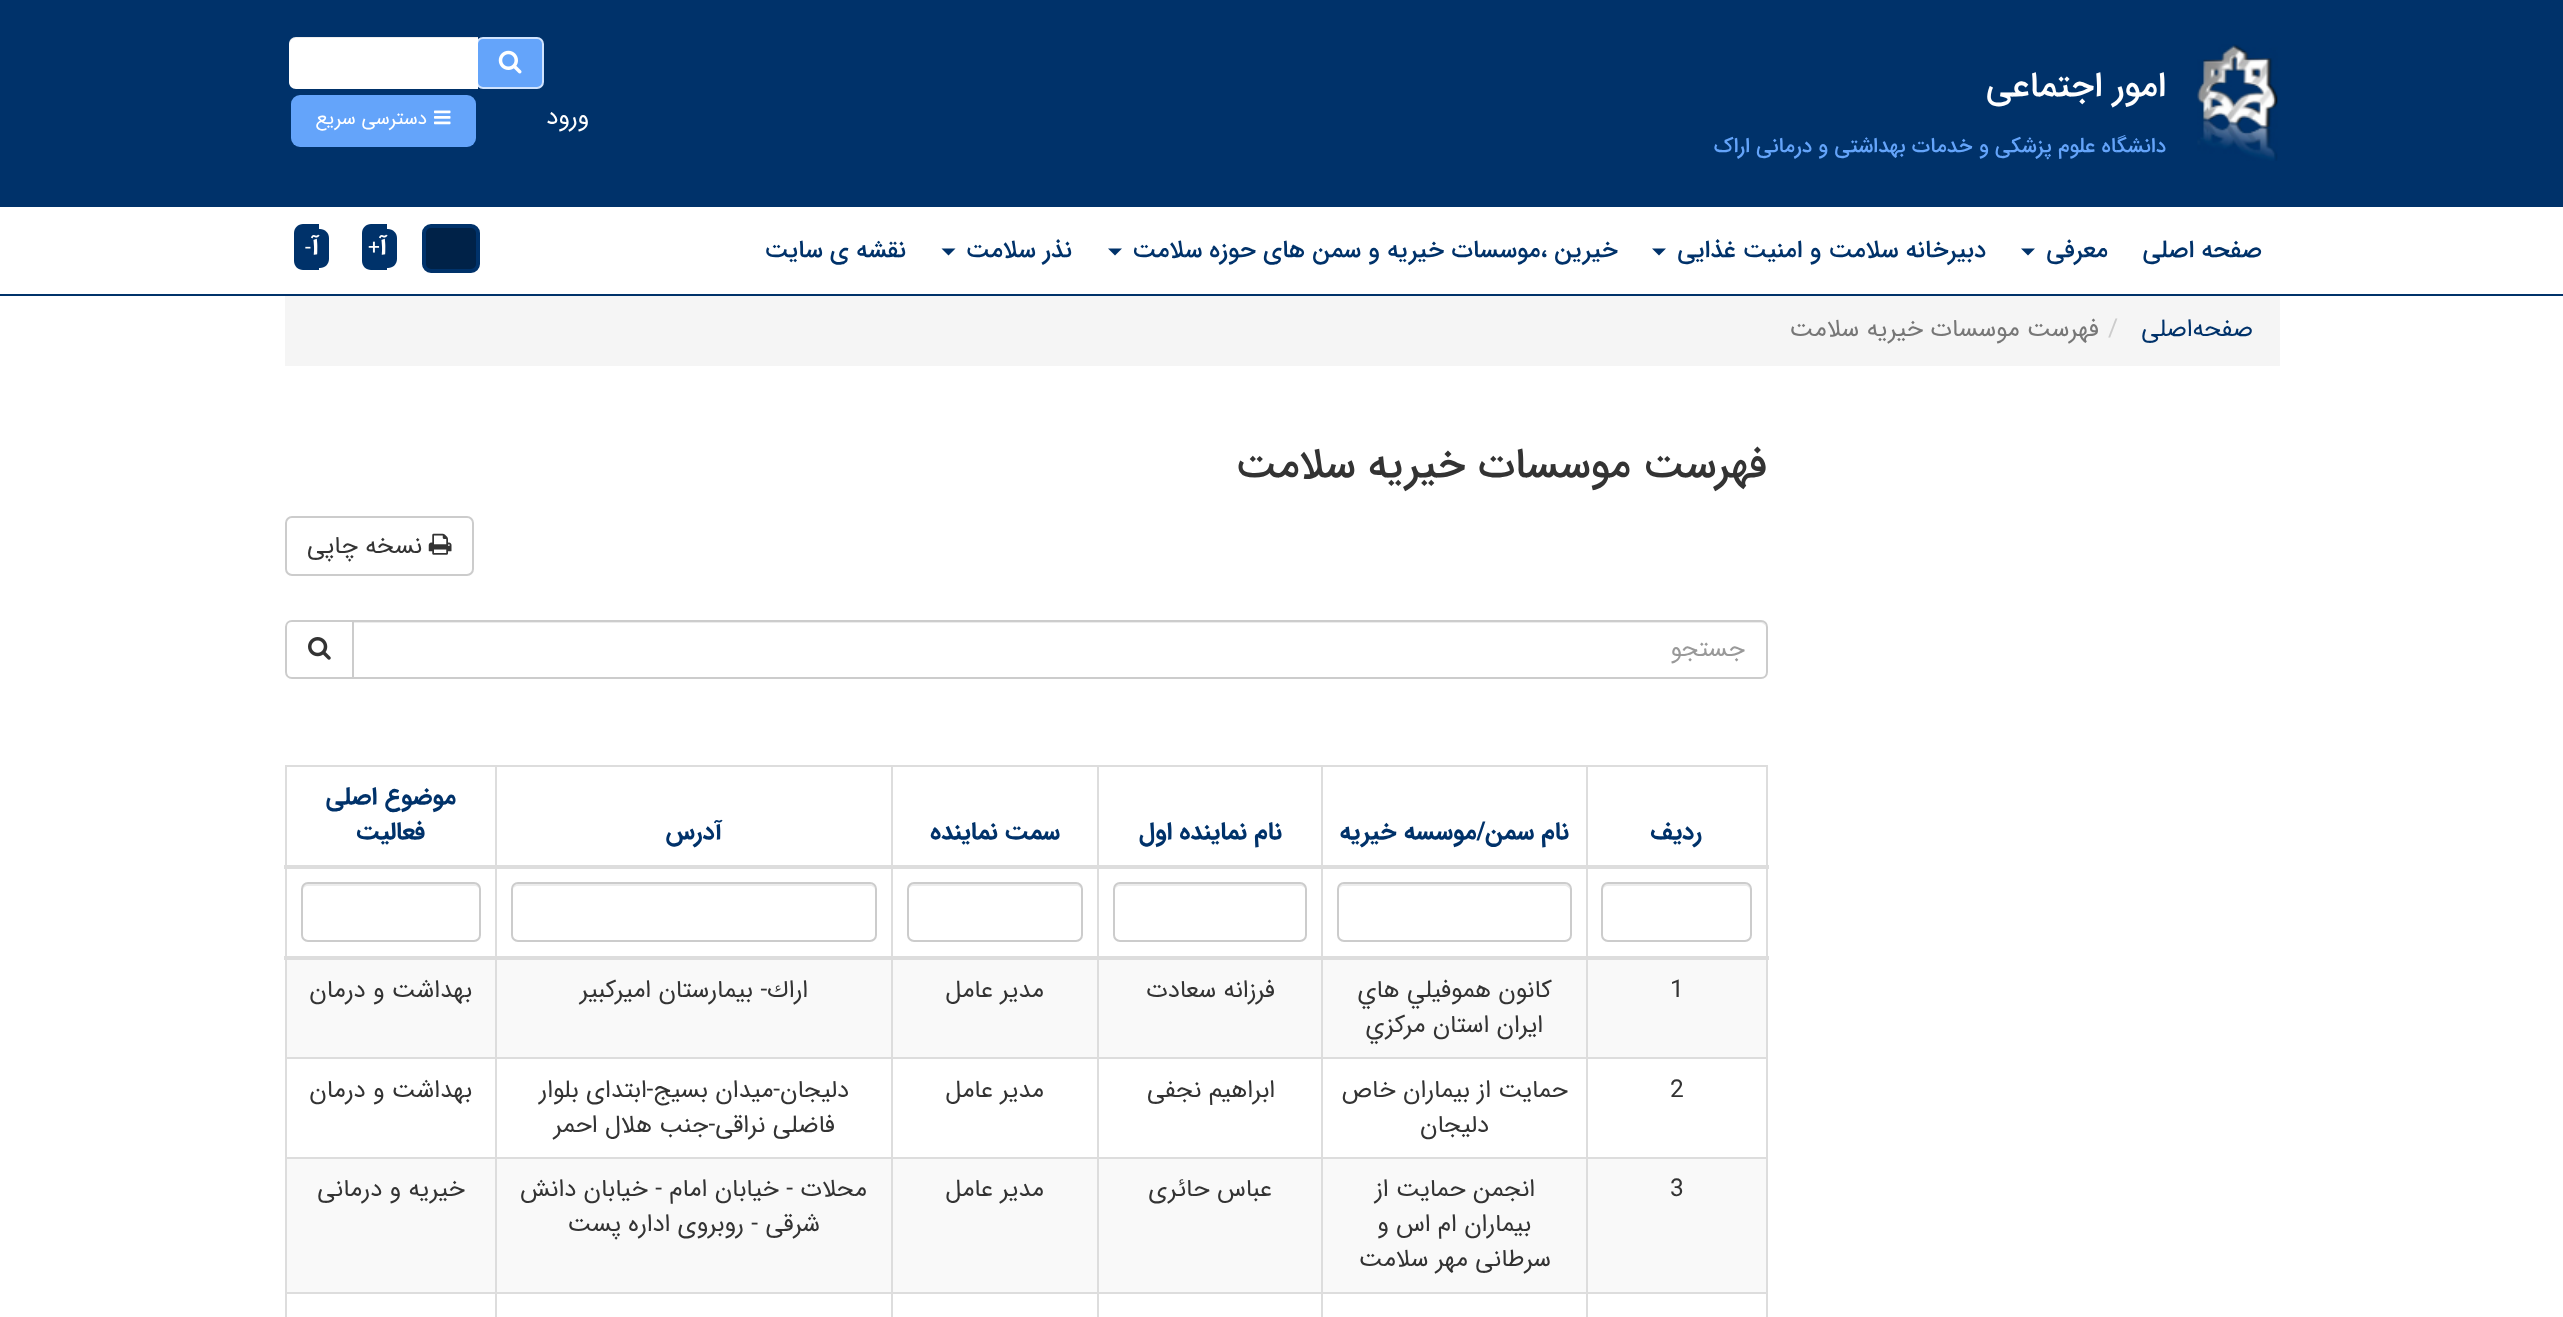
<svg xmlns="http://www.w3.org/2000/svg" width="2563" height="1317">
<style>
.a{font:500 35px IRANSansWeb;direction:rtl;fill:#fff}
.b{font:500 21px IRANSansWeb;direction:rtl;fill:#64a4fa}
.c{font:24.5px IRANSansWeb;direction:rtl;fill:#fff}
.d{font:19.25px IRANSansWeb;direction:rtl;fill:#fff}
.e{font:500 24.5px IRANSansWeb;direction:rtl;fill:#00326a}
.f{font:bold 24.5px IRANSansWeb;direction:rtl;fill:#fff}
.g{font:21px IRANSansWeb;fill:#fff}
.h{font:24.5px IRANSansWeb;direction:rtl;fill:#00326a}
.i{font:24.5px IRANSansWeb;fill:#ccc}
.j{font:24.5px IRANSansWeb;direction:rtl;fill:#777}
.k{font:500 42px IRANSansWeb;direction:rtl;fill:#333}
.l{font:24.5px IRANSansWeb;direction:rtl;fill:#333}
.m{font:24.5px IRANSansWeb;direction:rtl;fill:#999}
.n{font:bold 24.5px IRANSansWeb;direction:rtl;fill:#00326a}
.o{font:24.5px IRANSansWeb;fill:#333}
</style>
<rect width="100%" height="100%" fill="#fff"/>
<path fill="#00326a" d="M0 0h2563v207H0z"/>
<rect fill="#64a4fa" stroke="#d0e3fd" stroke-width="2" x="477" y="38" width="66" height="50" rx="6"/>
<image href="1.png" x="498" y="50" width="24" height="24"/>
<path fill="#fff" d="M296 37h182v52h-182c-4 0-7-3-7-7v-38c0-4 3-7 7-7z"/>
<path fill="#00000012" d="M296 38h182v-1h-182c-4 0-7 3-7 7v2c0-4 3-8 7-8z"/>
<image href="2.png" x="2197" y="44" width="81" height="117"/>
<rect fill="#64a4fa" x="291" y="95" width="185" height="52" rx="9"/>
<image href="3.png" x="434" y="110" width="17" height="15"/>
<path fill="#00326a" d="M0 294h2563v2H0z"/>
<path fill="#00326a" d="M2021 248.5h14l-7 7z"/>
<path fill="#00326a" d="M1652 248.5h14l-7 7z"/>
<path fill="#00326a" d="M1108 248.5h14l-7 7z"/>
<path fill="#00326a" d="M941.5 248.5h14l-7 7z"/>
<rect fill="#002248" stroke="#00326a" stroke-width="4" x="424" y="226" width="54" height="45" rx="7"/>
<path fill="#00326a" d="M371 224h16v46h-16c-5 0-9-4-9-9v-28c0-5 4-9 9-9z"/>
<path fill="#00326a" d="M368 229h20c5 0 9 4 9 9v21c0 5-4 9-9 9h-20z"/>
<path fill="#00326a" d="M303 224h16v46h-16c-5 0-9-4-9-9v-28c0-5 4-9 9-9z"/>
<path fill="#00326a" d="M306 229h14c5 0 9 4 9 9v21c0 5-4 9-9 9h-14z"/>
<path fill="#f5f5f5" d="M285 296h1995v70H285z"/>
<rect fill="none" stroke="#ccc" stroke-width="2" x="286" y="517" width="187" height="58" rx="6"/>
<image href="4.png" x="428" y="533" width="24" height="22"/>
<path fill="#ececec" d="M354 623h1406c3 0 6 2 6 5c0-3-1-7-5-7h-1407z"/>
<path fill="none" stroke="#ccc" stroke-width="2" d="M353 621h1408c3.5 0 6 2.5 6 6v45c0 3.5-2.5 6-6 6h-1408z"/>
<path fill="#fff" stroke="#ccc" stroke-width="2" d="M292 621h61v57h-61c-3.5 0-6-2.5-6-6v-45c0-3.5 2.5-6 6-6z"/>
<image href="5.png" x="308" y="637" width="23" height="23"/>
<path fill="#ddd" d="M285 765h1483v2H285z"/>
<path fill="#ddd" d="M1766 765h2v552H1766z"/>
<path fill="#ddd" d="M285 765h2v552H285z"/>
<path fill="#f9f9f9" d="M287 960h1479v97H287z"/>
<path fill="#ddd" d="M285 1057h212v2H285z"/>
<path fill="#ddd" d="M285 1157h212v2H285z"/>
<path fill="#f9f9f9" d="M287 1159h1479v133H287z"/>
<path fill="#ddd" d="M285 1292h212v2H285z"/>
<path fill="#ddd" d="M495 1292h2v25H495z"/>
<path fill="#ddd" d="M495 1292h398v2H495z"/>
<path fill="#ddd" d="M495 1157h2v136H495z"/>
<path fill="#ddd" d="M495 1157h398v2H495z"/>
<path fill="#ddd" d="M495 1057h2v102H495z"/>
<path fill="#ddd" d="M495 1057h398v2H495z"/>
<path fill="#ddd" d="M891 1292h2v25H891z"/>
<path fill="#ddd" d="M891 1292h208v2H891z"/>
<path fill="#ddd" d="M891 1157h2v136H891z"/>
<path fill="#ddd" d="M891 1157h208v2H891z"/>
<path fill="#ddd" d="M891 1057h2v102H891z"/>
<path fill="#ddd" d="M891 1057h208v2H891z"/>
<path fill="#ddd" d="M1097 1292h2v25H1097z"/>
<path fill="#ddd" d="M1097 1292h226v2H1097z"/>
<path fill="#ddd" d="M1097 1157h2v136H1097z"/>
<path fill="#ddd" d="M1097 1157h226v2H1097z"/>
<path fill="#ddd" d="M1097 1057h2v102H1097z"/>
<path fill="#ddd" d="M1097 1057h226v2H1097z"/>
<path fill="#ddd" d="M1321 1292h2v25H1321z"/>
<path fill="#ddd" d="M1321 1292h266v2H1321z"/>
<path fill="#ddd" d="M1321 1157h2v136H1321z"/>
<path fill="#ddd" d="M1321 1157h266v2H1321z"/>
<path fill="#ddd" d="M1321 1057h2v102H1321z"/>
<path fill="#ddd" d="M1321 1057h266v2H1321z"/>
<path fill="#ddd" d="M1586 1292h2v25H1586z"/>
<path fill="#ddd" d="M1586 1292h182v2H1586z"/>
<path fill="#ddd" d="M1586 1157h2v136H1586z"/>
<path fill="#ddd" d="M1586 1157h182v2H1586z"/>
<path fill="#ddd" d="M1586 1057h2v102H1586z"/>
<path fill="#ddd" d="M1586 1057h182v2H1586z"/>
<path fill="#ddd" d="M1586 765h2v294H1586z"/>
<path fill="#ddd" d="M1321 765h2v294H1321z"/>
<path fill="#ddd" d="M1097 765h2v294H1097z"/>
<path fill="#ddd" d="M891 765h2v294H891z"/>
<path fill="#ddd" d="M495 765h2v294H495z"/>
<path fill="#ddd" d="M284 865h1485v4H284z"/>
<path fill="#ddd" d="M284 956h1485v4H284z"/>
<path fill="#ececec" d="M308 886h166c3 0 6 2 6 5v-2c0-3-2-5-5-5h-167c-3 0-5 2-5 5v2c0-3 2-5 5-5z"/>
<rect fill="none" stroke="#ccc" stroke-width="2" x="302" y="883" width="178" height="58" rx="6"/>
<path fill="#ececec" d="M1608 886h137c3 0 5 2 5 5v-2c0-3-2-5-5-5h-137c-3 0-5 2-5 5v2c0-3 2-5 5-5z"/>
<rect fill="none" stroke="#ccc" stroke-width="2" x="1602" y="883" width="149" height="58" rx="6"/>
<path fill="#ececec" d="M1344 886h220c3 0 6 2 6 5c0-3 0-6-4-7h-222c-4 0-5 4-5 7c0-3 2-5 5-5z"/>
<rect fill="none" stroke="#ccc" stroke-width="2" x="1338" y="883" width="233" height="58" rx="6"/>
<path fill="#ececec" d="M1120 886h180c3 0 6 2 6 5v-2c0-3-2-5-5-5h-181c-3 0-5 2-5 5v2c0-3 2-5 5-5z"/>
<rect fill="none" stroke="#ccc" stroke-width="2" x="1114" y="883" width="192" height="58" rx="6"/>
<path fill="#ececec" d="M914 886h162c3 0 6 2 6 5v-2c0-3-2-5-5-5h-164c-3 0-5 2-5 5v2c0-3 3-5 6-5z"/>
<rect fill="none" stroke="#ccc" stroke-width="2" x="908" y="883" width="174" height="58" rx="6"/>
<path fill="#ececec" d="M518 886h352c3 0 5 2 5 5c0-3-1-7-5-7h-352c-4 0-5 4-5 7c0-3 2-5 5-5z"/>
<rect fill="none" stroke="#ccc" stroke-width="2" x="512" y="883" width="364" height="58" rx="6"/>
<text class="a" x="2166" y="96">امور اجتماعی</text>
<text class="b" x="2166" y="152">دانشگاه علوم پزشکی و خدمات بهداشتی و درمانی اراک</text>
<text class="c" x="589" y="124">ورود</text>
<text class="d" x="427" y="124">دسترسی سریع</text>
<text class="e" x="2262" y="257">صفحه اصلی</text>
<text class="e" x="2108" y="257">معرفی</text>
<text class="e" x="1986" y="257">دبیرخانه سلامت و امنیت غذایی</text>
<text class="e" x="1618" y="257">خیرین ،موسسات خیریه و سمن های حوزه سلامت</text>
<text class="e" x="1072" y="257">نذر سلامت</text>
<text class="e" x="906" y="257">نقشه ی سایت</text>
<text class="f" x="387" y="254">آ</text>
<text class="g" x="368" y="254">+</text>
<text class="f" x="319" y="254">آ</text>
<text class="g" x="305" y="254">-</text>
<text class="h" x="2253" y="336">صفحه‌اصلی</text>
<text class="i" x="2108" y="336">/</text>
<text class="j" x="2099" y="336">فهرست موسسات خیریه سلامت</text>
<text class="k" x="1767" y="477">فهرست موسسات خیریه سلامت</text>
<text class="l" x="422" y="553">نسخه چاپی</text>
<text class="m" x="1745" y="656">جستجو</text>
<text class="n" x="1702" y="839">ردیف</text>
<text class="n" x="1569" y="839">نام سمن/موسسه خیریه</text>
<text class="n" x="1282" y="839">نام نماینده اول</text>
<text class="n" x="1060" y="839">سمت نماینده</text>
<text class="n" x="722" y="839">آدرس</text>
<text class="n" x="456" y="804">موضوع اصلی</text>
<text class="n" x="425" y="839">فعالیت</text>
<text class="o" x="1670" y="997">1</text>
<text class="l" x="1552" y="997">کانون هموفيلي هاي</text>
<text class="l" x="1543" y="1032">ايران استان مركزي</text>
<text class="l" x="1275" y="997">فرزانه سعادت</text>
<text class="l" x="1044" y="997">مدیر عامل</text>
<text class="l" x="808" y="997">اراك- بیمارستان امیرکبیر</text>
<text class="l" x="472" y="997">بهداشت و درمان</text>
<text class="o" x="1670" y="1097">2</text>
<text class="l" x="1568" y="1097">حمايت از بيماران خاص</text>
<text class="l" x="1489" y="1132">دلیجان</text>
<text class="l" x="1275" y="1097">ابراهیم نجفی</text>
<text class="l" x="1044" y="1097">مدیر عامل</text>
<text class="l" x="849" y="1097">دلیجان-میدان بسیج-ابتدای بلوار</text>
<text class="l" x="835" y="1132">فاضلی نراقی-جنب هلال احمر</text>
<text class="l" x="472" y="1097">بهداشت و درمان</text>
<text class="o" x="1670" y="1196">3</text>
<text class="l" x="1535" y="1196">انجمن حمایت از</text>
<text class="l" x="1531" y="1231">بیماران ام اس و</text>
<text class="l" x="1551" y="1266">سرطانی مهر سلامت</text>
<text class="l" x="1272" y="1196">عباس حائری</text>
<text class="l" x="1044" y="1196">مدیر عامل</text>
<text class="l" x="867" y="1196">محلات - خیابان امام</text>
<text class="l" x="662" y="1196">- خیابان دانش</text>
<text class="l" x="820" y="1231">شرقی - روبروی اداره پست</text>
<text class="l" x="465" y="1196">خیریه و درمانی</text>
</svg>
